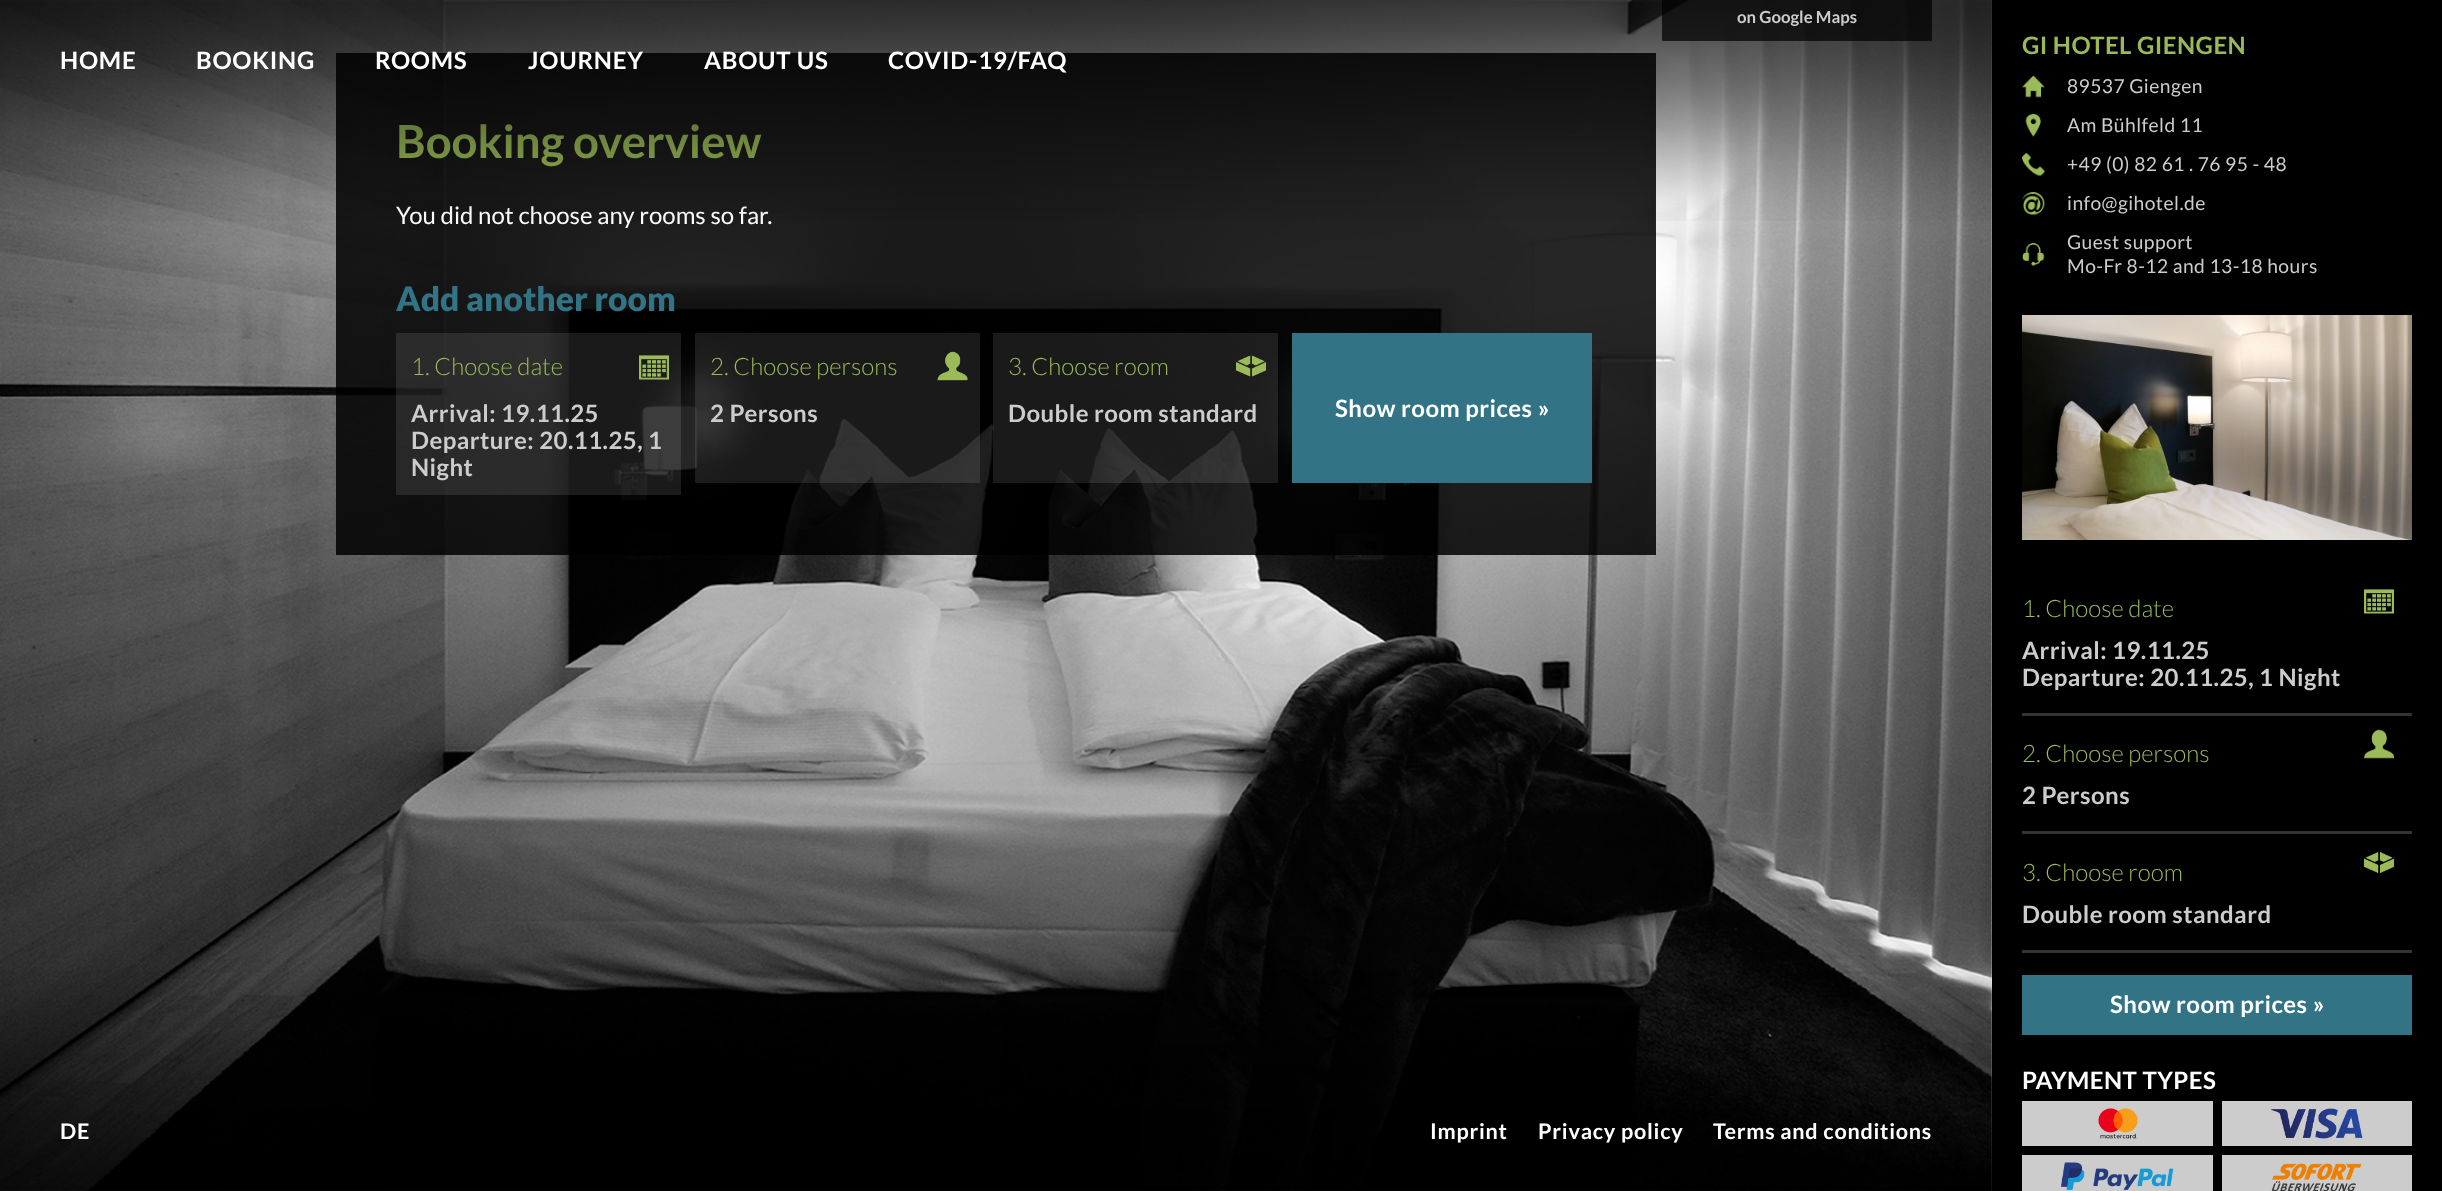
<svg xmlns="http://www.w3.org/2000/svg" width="2442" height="1191">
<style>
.a{font:bold 24px Lato;letter-spacing:0.45px;fill:#99ba56}
.b{font:19.25px Lato;letter-spacing:0.45px;fill:#ccc}
.c{font:300 24px Lato;fill:#99ba56}
.d{font:bold 24px Lato;letter-spacing:0.45px;fill:#ccc}
.e{font:bold 24px Lato;letter-spacing:0.45px;fill:#fff}
.f{font:bold 45.5px Lato;fill:#99ba56}
.g{font:24px Lato;fill:#fff}
.h{font:bold 16.75px Lato;fill:#ccc}
.i{font:bold 24px Lato;letter-spacing:0.75px;fill:#fff}
.j{font:900 33.5px Lato;fill:#327385}
.k{font:bold 21.6px Lato;letter-spacing:0.75px;fill:#fff}
</style>
<rect width="100%" height="100%" fill="#fff"/>
<image href="1.png" x="0" y="0" width="1992" height="1191"/>
<path fill="#000" d="M1992 0h450v1191H1992z"/>
<image href="3.png" x="2022" y="75" width="23" height="23"/>
<image href="4.png" x="2025" y="114" width="16" height="23"/>
<image href="5.png" x="2022" y="153" width="23" height="23"/>
<image href="6.png" x="2022" y="192" width="23" height="23"/>
<image href="7.png" x="2022" y="243" width="23" height="23"/>
<image href="8.png" x="2022" y="315" width="390" height="225"/>
<image href="9.png" x="2364" y="589" width="30" height="25"/>
<path fill="#333" d="M2022 713h390v3H2022z"/>
<image href="10.png" x="2364" y="729" width="30" height="30"/>
<path fill="#333" d="M2022 831h390v3H2022z"/>
<image href="11.png" x="2364" y="851" width="30" height="23"/>
<path fill="#333" d="M2022 950h390v3H2022z"/>
<path fill="#327385" d="M2022 975h390v60H2022z"/>
<path fill="#ccc" d="M2022 1101h191v45H2022z"/>
<image href="12.png" x="2098" y="1108" width="40" height="31"/>
<path fill="#ccc" d="M2222 1101h190v45H2222z"/>
<image href="13.png" x="2271" y="1108" width="92" height="31"/>
<path fill="#ccc" d="M2022 1155h191v36H2022z"/>
<image href="14.png" x="2061" y="1162" width="113" height="28"/>
<path fill="#ccc" d="M2222 1155h190v36H2222z"/>
<image href="15.png" x="2271" y="1163" width="91" height="28"/>
<path fill="#000000d9" d="M336 53h1320v502H336z"/>
<path fill="#ffffff1a" d="M396 333h285v162H396z"/>
<image href="16.png" x="639" y="355" width="30" height="25"/>
<path fill="#ffffff1a" d="M695 333h285v150H695z"/>
<image href="17.png" x="937" y="351" width="31" height="30"/>
<path fill="#ffffff1a" d="M993 333h285v150H993z"/>
<image href="18.png" x="1236" y="355" width="30" height="22"/>
<path fill="#327385" d="M1292 333h300v150H1292z"/>
<image href="19.png" x="0" y="970" width="1992" height="221"/>
<text class="a" x="2022" y="54">GI HOTEL GIENGEN</text>
<text class="b" x="2067" y="93">89537 Giengen</text>
<text class="b" x="2067" y="132">Am Bühlfeld 11</text>
<text class="b" x="2067" y="171">+49 (0) 82 61 . 76 95 - 48</text>
<text class="b" x="2067" y="210">info@gihotel.de</text>
<text class="b" x="2067" y="249">Guest support</text>
<text class="b" x="2067" y="273">Mo-Fr 8-12 and 13-18 hours</text>
<text class="c" x="2022" y="617">1. Choose date</text>
<text class="d" x="2022" y="659">Arrival: 19.11.25</text>
<text class="d" x="2022" y="686">Departure: 20.11.25, 1 Night</text>
<text class="c" x="2022" y="762">2. Choose persons</text>
<text class="d" x="2022" y="804">2 Persons</text>
<text class="c" x="2022" y="881">3. Choose room</text>
<text class="d" x="2022" y="923">Double room standard</text>
<text class="e" x="2110" y="1013">Show room prices »</text>
<text class="e" x="2022" y="1089">PAYMENT TYPES</text>
<text class="f" x="396" y="158">Booking overview</text>
<text class="g" x="396" y="224">You did not choose any rooms so far.</text>
<image href="2.png" x="0" y="0" width="1992" height="221"/>
<path fill="#000000b3" d="M1662 0h270v41H1662z"/>
<text class="h" x="1737" y="23">on Google Maps</text>
<text class="i" x="888" y="69">COVID-19/FAQ</text>
<text class="i" x="704" y="69">ABOUT US</text>
<text class="i" x="528" y="69">JOURNEY</text>
<text class="i" x="375" y="69">ROOMS</text>
<text class="i" x="196" y="69">BOOKING</text>
<text class="i" x="60" y="69">HOME</text>
<text class="j" x="396" y="311">Add another room</text>
<text class="c" x="411" y="375">1. Choose date</text>
<text class="d" x="411" y="422">Arrival: 19.11.25</text>
<text class="d" x="411" y="449">Departure: 20.11.25, 1</text>
<text class="d" x="411" y="476">Night</text>
<text class="c" x="710" y="375">2. Choose persons</text>
<text class="d" x="710" y="422">2 Persons</text>
<text class="c" x="1008" y="375">3. Choose room</text>
<text class="d" x="1008" y="422">Double room standard</text>
<text class="e" x="1335" y="417">Show room prices »</text>
<text class="k" x="60" y="1139">DE</text>
<text class="k" x="1430" y="1139">Imprint</text>
<text class="k" x="1538" y="1139">Privacy policy</text>
<text class="k" x="1713" y="1139">Terms and conditions</text>
</svg>
